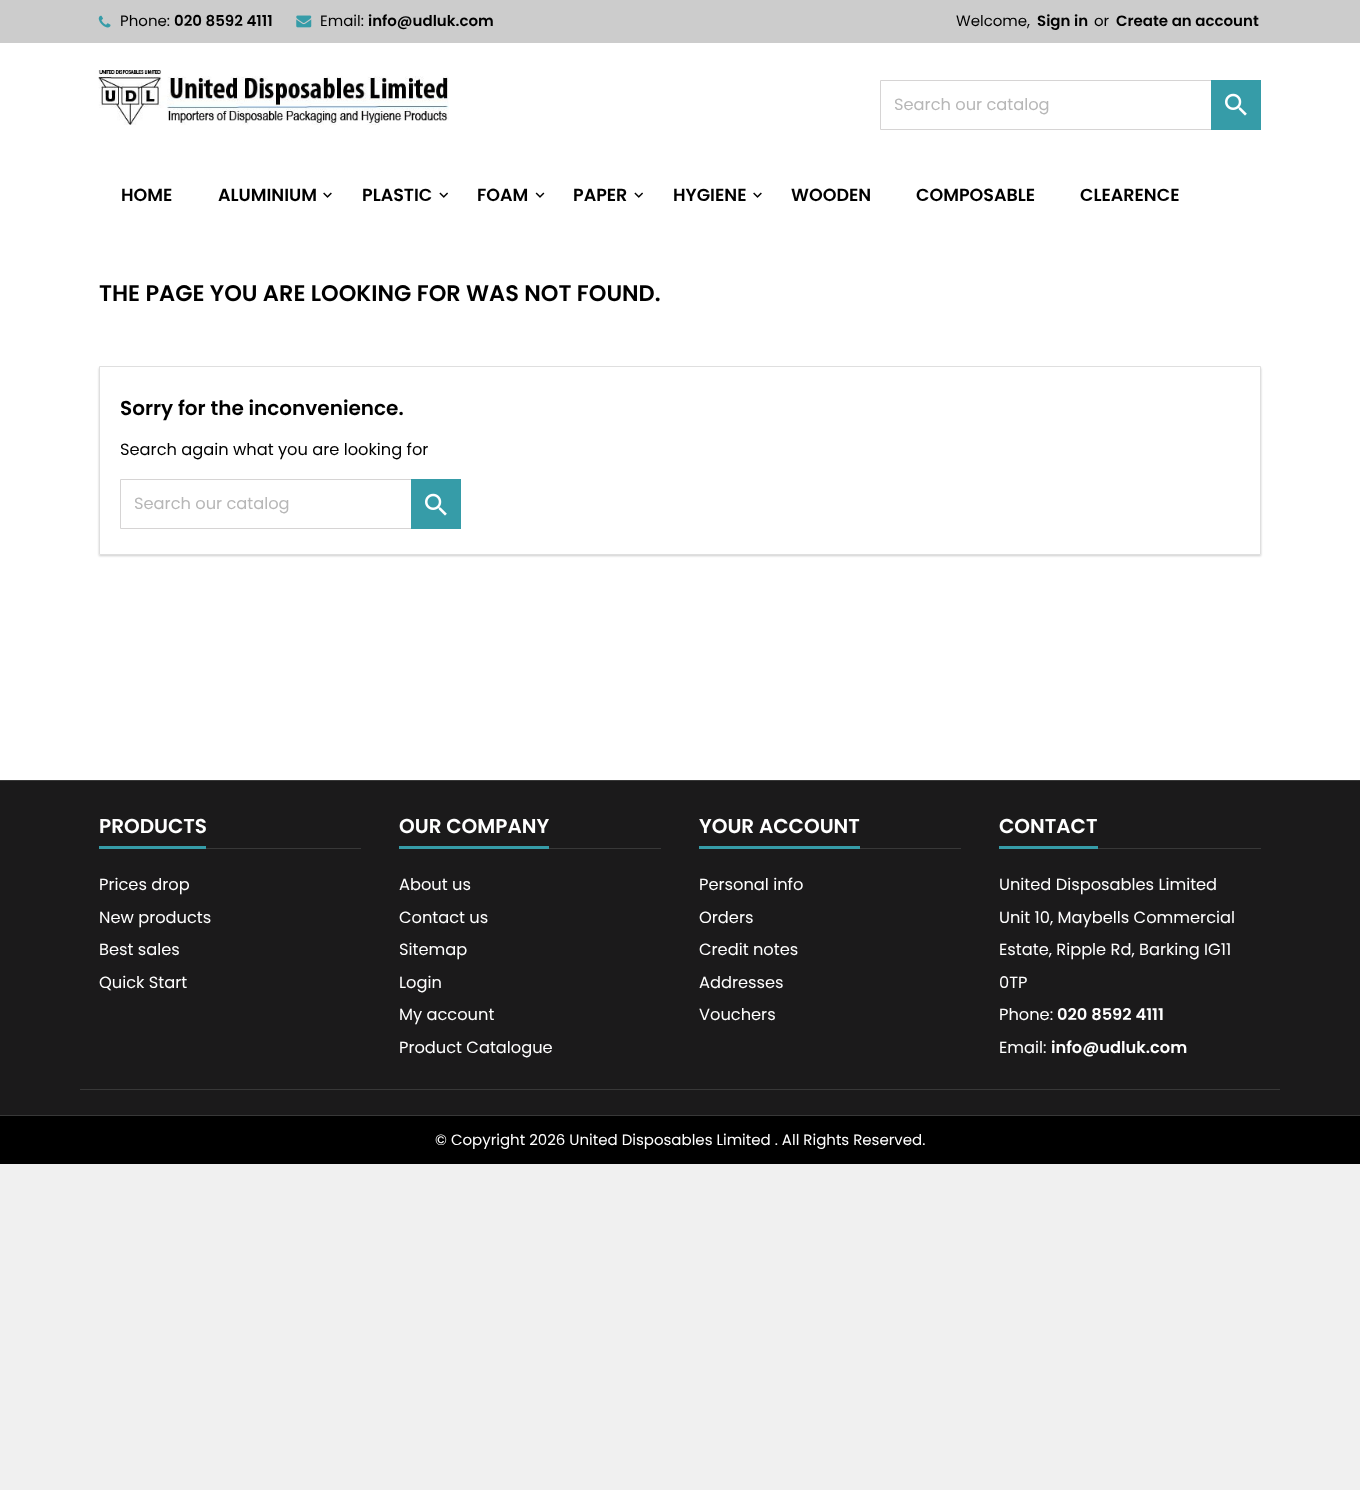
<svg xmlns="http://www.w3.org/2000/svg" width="1360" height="1490">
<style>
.a{font:15px Poppins;fill:#000}
.b{font:600 15px Poppins;fill:#000}
.c{font:16.25px Poppins;fill:#b7b7b7}
.d{font:600 17.5px Poppins;fill:#000}
.e{font:600 22.5px Poppins;fill:#000}
.f{font:600 20px Poppins;fill:#000}
.g{font:16.25px Poppins;fill:#000}
.h{font:600 20px Poppins;fill:#fff}
.i{font:16.25px Poppins;fill:#fff}
.j{font:600 16.25px Poppins;fill:#fff}
.k{font:15px Poppins;fill:#fff}
</style>
<defs>
<clipPath id="clip1"><path d="M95 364h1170v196h-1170zm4 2h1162v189h-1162z" clip-rule="evenodd"/></clipPath>
</defs>
<rect width="100%" height="100%" fill="#f0f0f0"/>
<path fill="#fff" d="M0 43h1360v737H0z"/>
<path fill="#ccc" d="M0 0h1360v43H0z"/>
<image href="1.png" x="98" y="15" width="13" height="13"/>
<image href="2.png" x="296" y="15" width="16" height="13"/>
<image href="3.png" x="98" y="70" width="351" height="55"/>
<path fill="none" stroke="#d6d4d4" d="M880.5 80.5h380v49H880.5z"/>
<path fill="#369ca8" d="M1211 80h50v50H1211z"/>
<image href="4.png" x="1225" y="93" width="22" height="23"/>
<image href="5.png" x="323" y="192" width="9" height="6"/>
<image href="6.png" x="439" y="192" width="9" height="6"/>
<image href="7.png" x="535" y="192" width="10" height="6"/>
<image href="6.png" x="634" y="192" width="9" height="6"/>
<image href="5.png" x="753" y="192" width="9" height="6"/>
<g clip-path="url(#clip1)">
<path fill="#00000033" filter="blur(1px)" d="M99 368h1162v188H99z"/>
</g>
<path fill="none" stroke="#dfdfdf" d="M99.5 366.5h1161v188H99.5z"/>
<path fill="none" stroke="#d6d4d4" d="M120.5 479.5h340v49H120.5z"/>
<path fill="#369ca8" d="M411 479h50v50H411z"/>
<image href="4.png" x="425" y="493" width="22" height="23"/>
<path fill="#1b1a1b" d="M0 781h1360v334H0z"/>
<path fill="#383838" d="M0 780h1360v1H0z"/>
<path fill="#383838" d="M206 848h155v1H206z"/>
<path fill="#369ca8" d="M99 846h107v3H99z"/>
<path fill="#383838" d="M549 848h112v1H549z"/>
<path fill="#369ca8" d="M399 846h150v3H399z"/>
<path fill="#383838" d="M860 848h101v1H860z"/>
<path fill="#369ca8" d="M699 846h161v3H699z"/>
<path fill="#383838" d="M1098 848h163v1H1098z"/>
<path fill="#369ca8" d="M999 846h99v3H999z"/>
<path fill="#383838" d="M80 1089h1200v1H80z"/>
<path fill="#000" d="M0 1116h1360v48H0z"/>
<path fill="#383838" d="M0 1115h1360v1H0z"/>
<text class="a" x="120" y="26">Phone:</text>
<text class="b" x="174" y="26">020 8592 4111</text>
<text class="a" x="320" y="26">Email:</text>
<text class="b" x="368" y="26">info@udluk.com</text>
<text class="a" x="956" y="26">Welcome,</text>
<text class="b" x="1037" y="26">Sign in</text>
<text class="a" x="1094" y="26">or</text>
<text class="b" x="1116" y="26">Create an account</text>
<text class="c" x="894" y="110">Search our catalog</text>
<text class="d" x="121" y="201">HOME</text>
<text class="d" x="218" y="201">ALUMINIUM</text>
<text class="d" x="362" y="201">PLASTIC</text>
<text class="d" x="477" y="201">FOAM</text>
<text class="d" x="573" y="201">PAPER</text>
<text class="d" x="673" y="201">HYGIENE</text>
<text class="d" x="791" y="201">WOODEN</text>
<text class="d" x="916" y="201">COMPOSABLE</text>
<text class="d" x="1080" y="201">CLEARENCE</text>
<text class="e" x="99" y="301">THE PAGE YOU ARE LOOKING FOR WAS NOT FOUND.</text>
<text class="f" x="120" y="415">Sorry for the inconvenience.</text>
<text class="g" x="120" y="455">Search again what you are looking for</text>
<text class="c" x="134" y="509">Search our catalog</text>
<text class="h" x="99" y="833">PRODUCTS</text>
<text class="i" x="99" y="890">Prices drop</text>
<text class="i" x="99" y="923">New products</text>
<text class="i" x="99" y="955">Best sales</text>
<text class="i" x="99" y="988">Quick Start</text>
<text class="h" x="399" y="833">OUR COMPANY</text>
<text class="i" x="399" y="890">About us</text>
<text class="i" x="399" y="923">Contact us</text>
<text class="i" x="399" y="955">Sitemap</text>
<text class="i" x="399" y="988">Login</text>
<text class="i" x="399" y="1020">My account</text>
<text class="i" x="399" y="1053">Product Catalogue</text>
<text class="h" x="699" y="833">YOUR ACCOUNT</text>
<text class="i" x="699" y="890">Personal info</text>
<text class="i" x="699" y="923">Orders</text>
<text class="i" x="699" y="955">Credit notes</text>
<text class="i" x="699" y="988">Addresses</text>
<text class="i" x="699" y="1020">Vouchers</text>
<text class="h" x="999" y="833">CONTACT</text>
<text class="i" x="999" y="890">United Disposables Limited</text>
<text class="i" x="999" y="923">Unit 10, Maybells Commercial</text>
<text class="i" x="999" y="955">Estate, Ripple Rd, Barking IG11</text>
<text class="i" x="999" y="988">0TP</text>
<text class="i" x="999" y="1020">Phone:</text>
<text class="j" x="1057" y="1020">020 8592 4111</text>
<text class="i" x="999" y="1053">Email:</text>
<text class="j" x="1051" y="1053">info@udluk.com</text>
<text class="k" x="435" y="1145">© Copyright 2026 United Disposables Limited . All Rights Reserved.</text>
</svg>
